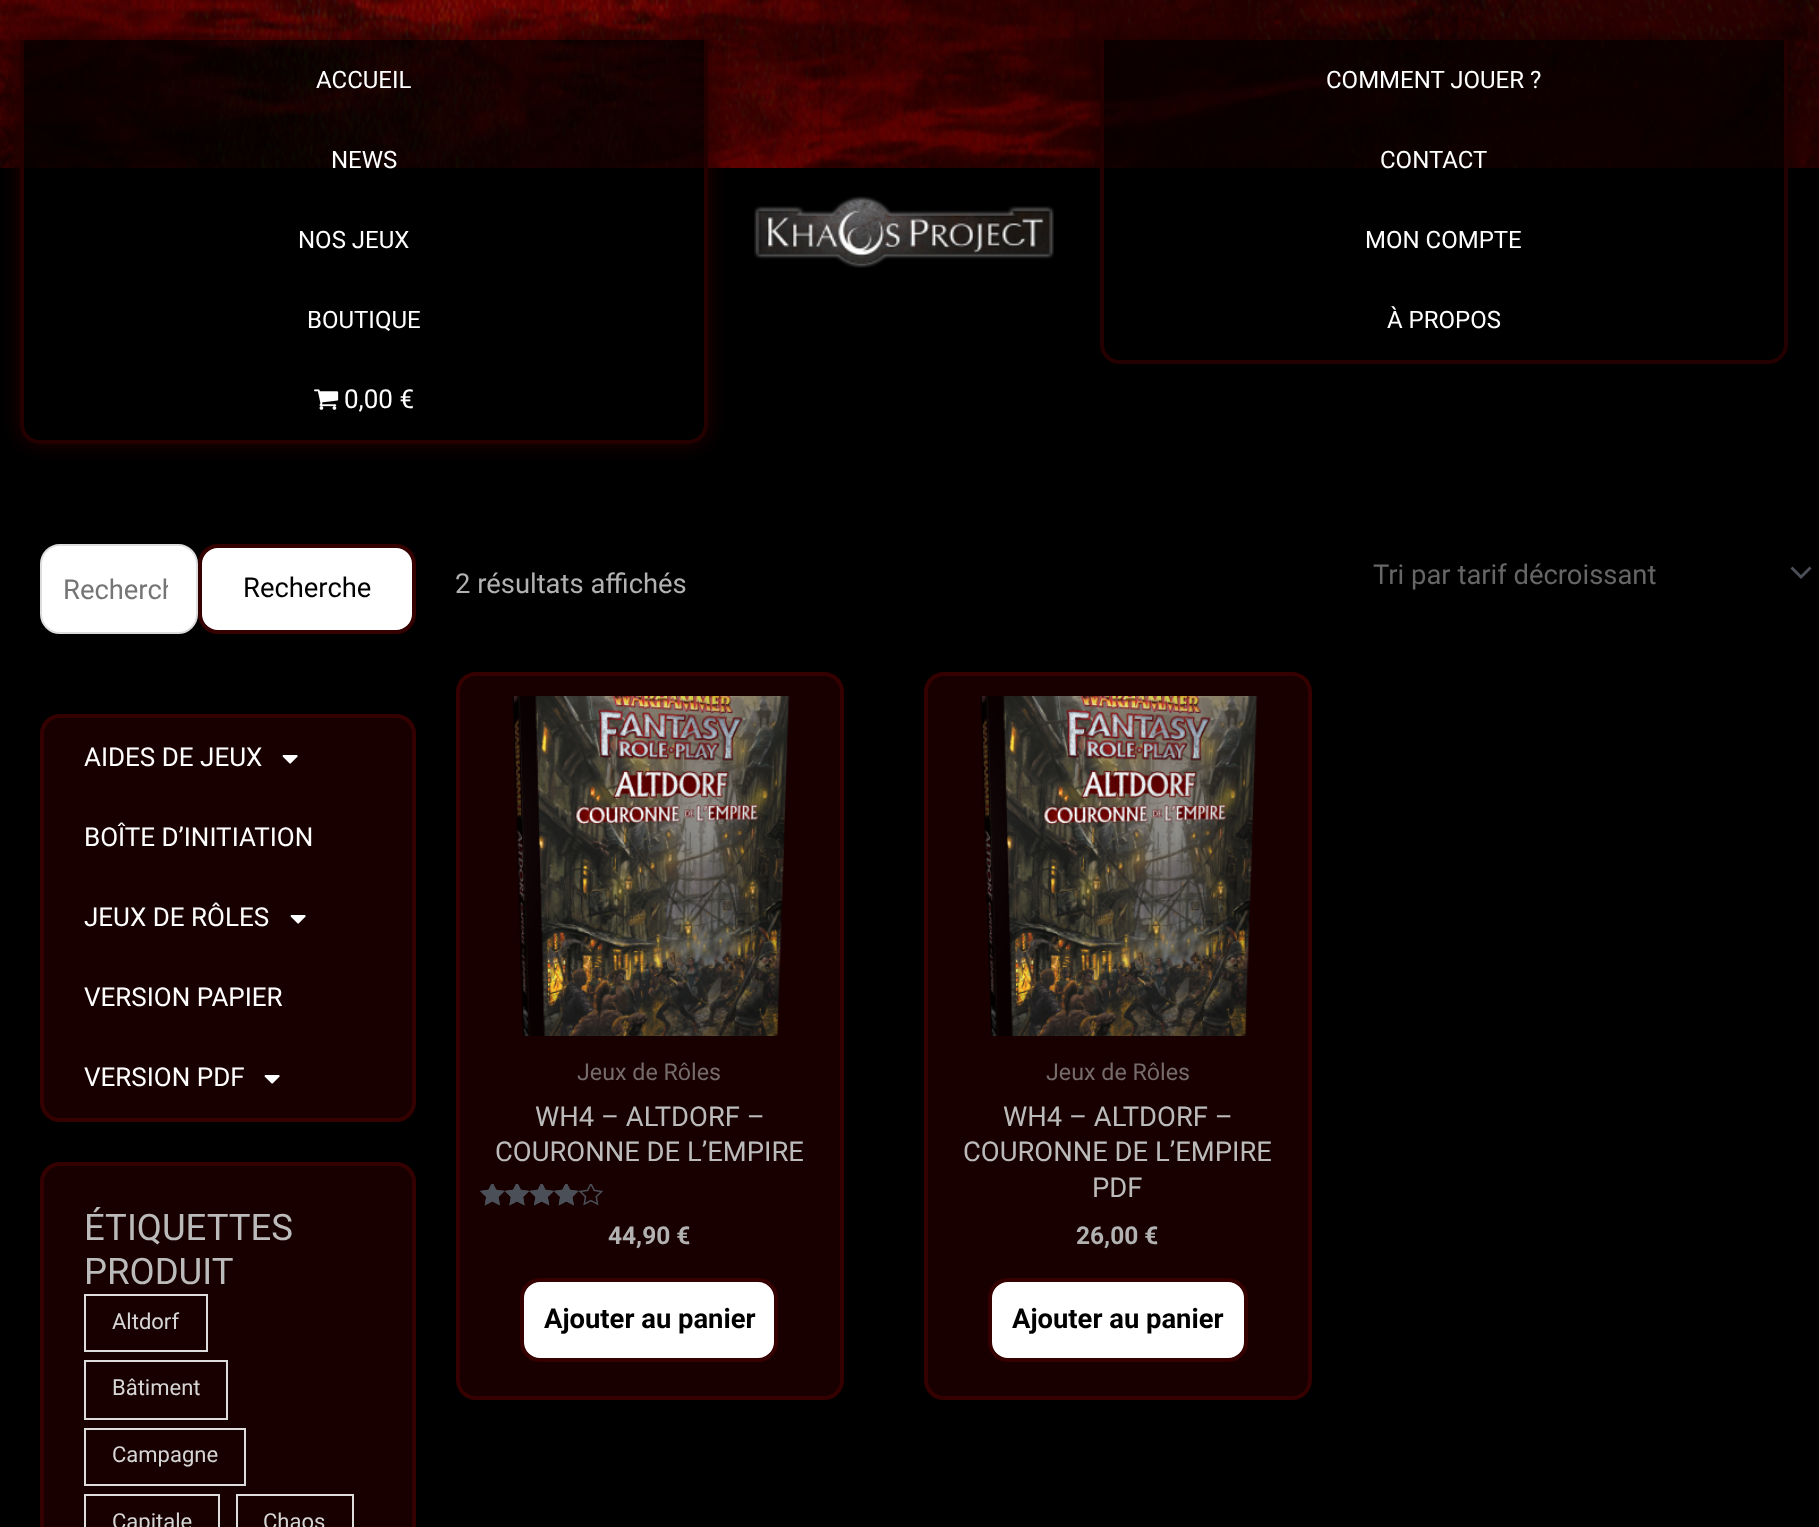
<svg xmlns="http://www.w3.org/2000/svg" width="1819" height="1527">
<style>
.a{font:24px Roboto;fill:#fff}
.b{font:26px Roboto;fill:#fff}
.c{font:27.4px Roboto;fill:#757575}
.d{font:27.4px Roboto;fill:#000}
.e{font:36.5px Roboto;fill:#bbb}
.f{font:22px Roboto;fill:#d6d6d6}
.g{font:27.4px Roboto;fill:#b2b2b2}
.h{font:27.4px Roboto;fill:#666}
.i{font:23.25px Roboto;fill:#756b6b}
.j{font:27.4px Roboto;fill:#bbb}
.k{font:bold 24.5px Roboto;fill:#b2b2b2}
.l{font:bold 27.4px Roboto;fill:#000}
</style>
<defs>
<clipPath id="clip1"><path d="M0 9h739v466h-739zm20 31h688v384c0 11-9 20-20 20h-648c-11 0-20-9-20-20z" clip-rule="evenodd"/></clipPath>
<clipPath id="clip2"><path d="M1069 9h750v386h-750zm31 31h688v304c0 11-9 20-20 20h-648c-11 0-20-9-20-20z" clip-rule="evenodd"/></clipPath>
<clipPath id="clip3"><path d="M62 572h106v32H62z"/></clipPath>
</defs>
<rect width="100%" height="100%" fill="#000"/>
<image href="1.png" x="0" y="0" width="1819" height="168"/>
<g clip-path="url(#clip1)">
<rect fill="#250000" filter="blur(10px)" x="20" y="40" width="688" height="404" rx="20"/>
</g>
<path fill="#000000b0" d="M24 40h680v384c0 9-7 16-16 16h-648c-9 0-16-7-16-16z"/>
<path fill="#250000" fill-rule="evenodd" d="M20 40h688v384c0 11-9 20-20 20h-648c-11 0-20-9-20-20zm4 0h680v384c0 9-7 16-16 16h-648c-9 0-16-7-16-16z"/>
<image href="2.png" x="314" y="389" width="25" height="21"/>
<image href="3.png" x="754" y="196" width="300" height="72"/>
<g clip-path="url(#clip2)">
<rect fill="#00000080" filter="blur(10px)" x="1100" y="40" width="688" height="324" rx="20"/>
</g>
<path fill="#000000b0" d="M1104 40h680v304c0 9-7 16-16 16h-648c-9 0-16-7-16-16z"/>
<path fill="#250000" fill-rule="evenodd" d="M1100 40h688v304c0 11-9 20-20 20h-648c-11 0-20-9-20-20zm4 0h680v304c0 9-7 16-16 16h-648c-9 0-16-7-16-16z"/>
<rect fill="#fff" stroke="#ddd" stroke-width="2" x="41" y="545" width="156" height="88" rx="19"/>
<rect fill="#fff" stroke="#350000" stroke-width="4" x="200" y="546" width="214" height="86" rx="18"/>
<rect fill="#190000" stroke="#350000" stroke-width="4" x="42" y="716" width="372" height="404" rx="18"/>
<image href="4.png" x="282" y="755" width="16" height="9"/>
<image href="4.png" x="290" y="915" width="16" height="9"/>
<image href="4.png" x="264" y="1075" width="16" height="9"/>
<rect fill="#190000" stroke="#350000" stroke-width="4" x="42" y="1164" width="372" height="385" rx="18"/>
<path fill="none" stroke="#ddd" stroke-width="2" d="M85 1295h122v56H85z"/>
<path fill="none" stroke="#ddd" stroke-width="2" d="M85 1361h142v58H85z"/>
<path fill="none" stroke="#ddd" stroke-width="2" d="M85 1429h160v56H85z"/>
<path fill="none" stroke="#ddd" stroke-width="2" d="M85 1495h134v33H85z"/>
<path fill="none" stroke="#ddd" stroke-width="2" d="M237 1495h116v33H237z"/>
<path fill="#4b4f58" d="M1790.5 568.5l10.5 10.5l10.5-10.5l-2-2l-8.5 8.5l-8.5-8.5z"/>
<rect fill="#190000" stroke="#350000" stroke-width="4" x="458" y="674" width="384" height="724" rx="18"/>
<image href="5.png" x="512" y="696" width="278" height="340"/>
<image href="6.png" x="480" y="1184" width="123" height="22"/>
<image href="7.png" x="480" y="1184" width="100" height="22"/>
<rect fill="#fff" stroke="#350000" stroke-width="4" x="522" y="1280" width="254" height="80" rx="18"/>
<rect fill="#190000" stroke="#350000" stroke-width="4" x="926" y="674" width="384" height="724" rx="18"/>
<image href="8.png" x="980" y="696" width="278" height="340"/>
<rect fill="#fff" stroke="#350000" stroke-width="4" x="990" y="1280" width="256" height="80" rx="18"/>
<text class="a" x="316" y="88">ACCUEIL</text>
<text class="a" x="331" y="168">NEWS</text>
<text class="a" x="298" y="248">NOS JEUX</text>
<text class="a" x="307" y="328">BOUTIQUE</text>
<text class="b" x="344" y="408">0,00 €</text>
<text class="a" x="1326" y="88">COMMENT JOUER ?</text>
<text class="a" x="1380" y="168">CONTACT</text>
<text class="a" x="1365" y="248">MON COMPTE</text>
<text class="a" x="1387" y="328">À PROPOS</text>
<g clip-path="url(#clip3)">
<text class="c" x="63" y="599">Recherch</text>
</g>
<text class="d" x="243" y="597">Recherche</text>
<text class="b" x="84" y="766">AIDES DE JEUX</text>
<text class="b" x="84" y="846">BOÎTE D’INITIATION</text>
<text class="b" x="84" y="926">JEUX DE RÔLES</text>
<text class="b" x="84" y="1006">VERSION PAPIER</text>
<text class="b" x="84" y="1086">VERSION PDF</text>
<text class="e" x="84" y="1240">ÉTIQUETTES</text>
<text class="e" x="84" y="1284">PRODUIT</text>
<text class="f" x="112" y="1329">Altdorf</text>
<text class="f" x="112" y="1395">Bâtiment</text>
<text class="f" x="112" y="1462">Campagne</text>
<text class="f" x="112" y="1529">Capitale</text>
<text class="f" x="263" y="1529">Chaos</text>
<text class="g" x="455" y="593">2 résultats affichés</text>
<text class="h" x="1373" y="584">Tri par tarif décroissant</text>
<text class="i" x="577" y="1080">Jeux de Rôles</text>
<text class="j" x="535" y="1126">WH4 – ALTDORF –</text>
<text class="j" x="495" y="1161">COURONNE DE L’EMPIRE</text>
<text class="k" x="608" y="1244">44,90 €</text>
<text class="l" x="544" y="1328">Ajouter au panier</text>
<text class="i" x="1046" y="1080">Jeux de Rôles</text>
<text class="j" x="1003" y="1126">WH4 – ALTDORF –</text>
<text class="j" x="963" y="1161">COURONNE DE L’EMPIRE</text>
<text class="j" x="1092" y="1197">PDF</text>
<text class="k" x="1076" y="1244">26,00 €</text>
<text class="l" x="1012" y="1328">Ajouter au panier</text>
</svg>
